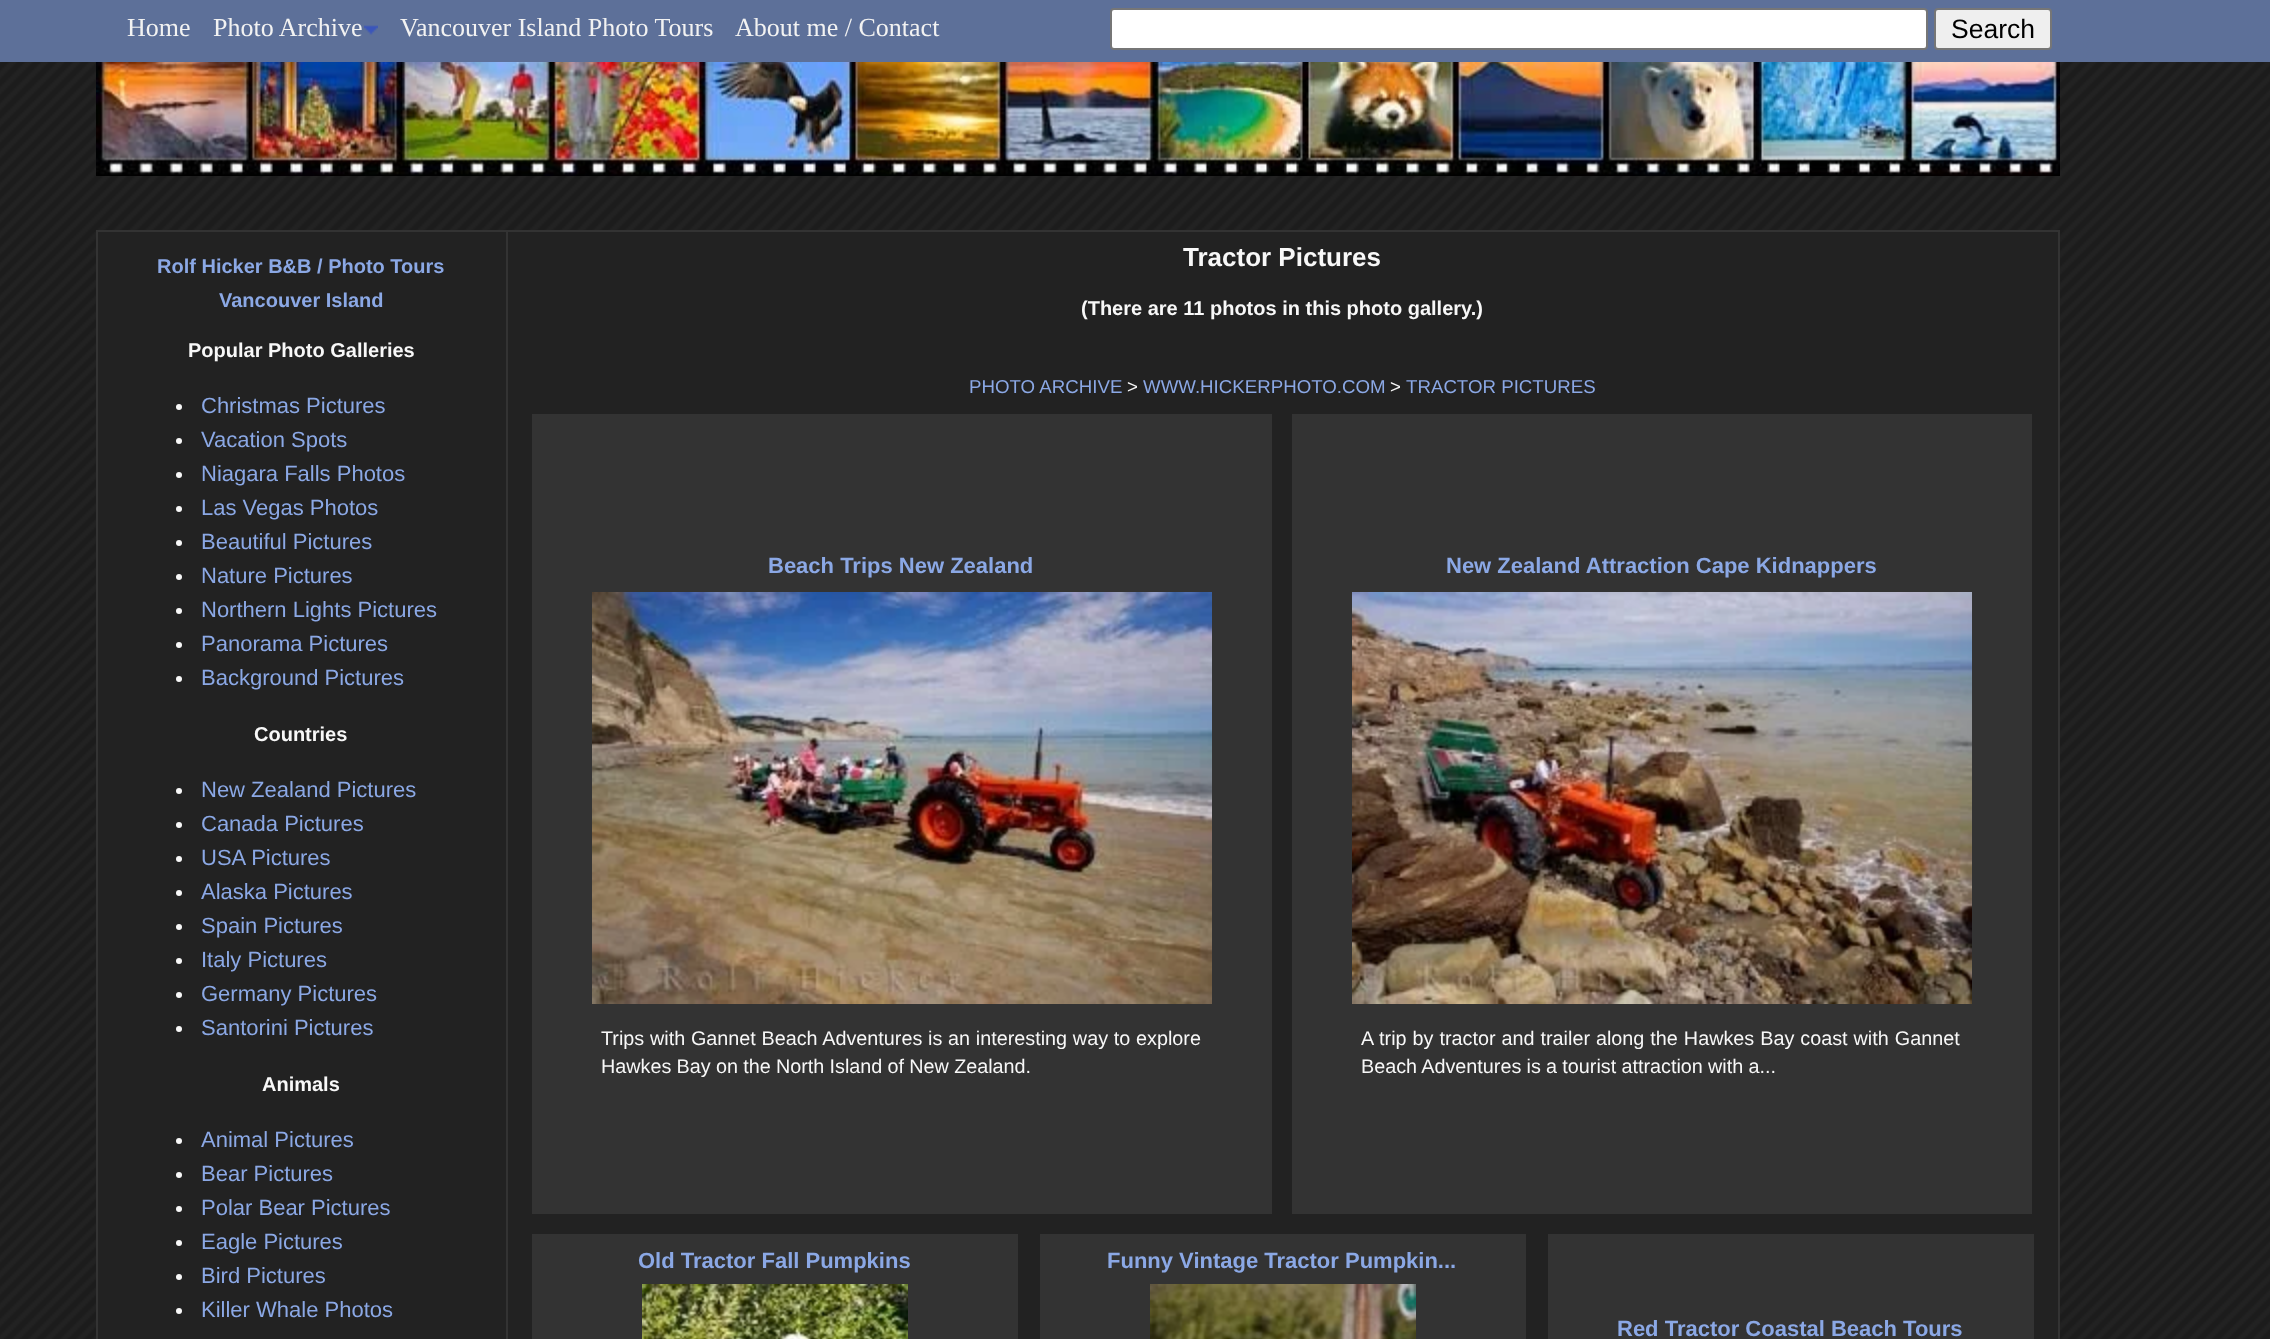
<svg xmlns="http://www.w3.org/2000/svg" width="2270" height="1339">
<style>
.a{font:26px Liberation Serif;fill:#f2f2f2}
.b{font:26.5px Liberation Sans;fill:#000}
.c{font:bold 20px Liberation Sans;fill:#8ba8e5}
.d{font:bold 20px Liberation Sans;fill:#f8f8f8}
.e{font:22px Liberation Sans;fill:#8ba8e5}
.f{font:bold 26px Liberation Sans;fill:#f8f8f8}
.g{font:18.7px Liberation Sans;fill:#8ba8e5}
.h{font:18.7px Liberation Sans;fill:#f8f8f8}
.i{font:bold 22px Liberation Sans;fill:#8ba8e5}
.j{font:19.8px Liberation Sans;fill:#f8f8f8}
</style>
<rect width="100%" height="100%" fill="#fff"/>
<image href="1.png" x="0" y="62" width="2270" height="1277"/>
<path fill="#5d7099" d="M0 0h2270v62H0z"/>
<image href="2.png" x="364" y="25" width="14" height="10"/>
<rect fill="#fff" stroke="#767676" stroke-width="2" x="1111" y="9" width="816" height="40" rx="3"/>
<rect fill="#efefef" stroke="#767676" stroke-width="2" x="1935" y="9" width="116" height="40" rx="3"/>
<image href="3.png" x="96" y="62" width="1964" height="114"/>
<path fill="#222" stroke="#333" stroke-width="2" d="M97 231h1962v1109H97z"/>
<circle fill="#f8f8f8" cx="179" cy="407" r="3"/>
<circle fill="#f8f8f8" cx="179" cy="441" r="3"/>
<circle fill="#f8f8f8" cx="179" cy="475" r="3"/>
<circle fill="#f8f8f8" cx="179" cy="509" r="3"/>
<circle fill="#f8f8f8" cx="179" cy="543" r="3"/>
<circle fill="#f8f8f8" cx="179" cy="577" r="3"/>
<circle fill="#f8f8f8" cx="179" cy="611" r="3"/>
<circle fill="#f8f8f8" cx="179" cy="645" r="3"/>
<circle fill="#f8f8f8" cx="179" cy="679" r="3"/>
<circle fill="#f8f8f8" cx="179" cy="791" r="3"/>
<circle fill="#f8f8f8" cx="179" cy="825" r="3"/>
<circle fill="#f8f8f8" cx="179" cy="859" r="3"/>
<circle fill="#f8f8f8" cx="179" cy="893" r="3"/>
<circle fill="#f8f8f8" cx="179" cy="927" r="3"/>
<circle fill="#f8f8f8" cx="179" cy="961" r="3"/>
<circle fill="#f8f8f8" cx="179" cy="995" r="3"/>
<circle fill="#f8f8f8" cx="179" cy="1029" r="3"/>
<circle fill="#f8f8f8" cx="179" cy="1141" r="3"/>
<circle fill="#f8f8f8" cx="179" cy="1175" r="3"/>
<circle fill="#f8f8f8" cx="179" cy="1209" r="3"/>
<circle fill="#f8f8f8" cx="179" cy="1243" r="3"/>
<circle fill="#f8f8f8" cx="179" cy="1277" r="3"/>
<circle fill="#f8f8f8" cx="179" cy="1311" r="3"/>
<path fill="#333" d="M506 232h2v1107H506z"/>
<path fill="#333" d="M532 414h740v800H532z"/>
<image href="4.png" x="592" y="592" width="620" height="412"/>
<path fill="#333" d="M1292 414h740v800H1292z"/>
<image href="5.png" x="1352" y="592" width="620" height="412"/>
<path fill="#333" d="M532 1234h486v105H532z"/>
<image href="6.png" x="642" y="1284" width="266" height="55"/>
<path fill="#333" d="M1040 1234h486v105H1040z"/>
<image href="7.png" x="1150" y="1284" width="266" height="55"/>
<path fill="#333" d="M1548 1234h486v105H1548z"/>
<text class="a" x="127" y="36">Home</text>
<text class="a" x="213" y="36">Photo Archive</text>
<text class="a" x="400" y="36">Vancouver Island Photo Tours</text>
<text class="a" x="735" y="36">About me / Contact</text>
<text class="b" x="1951" y="38">Search</text>
<text class="c" x="157" y="273">Rolf Hicker B&amp;B / Photo Tours</text>
<text class="c" x="219" y="307">Vancouver Island</text>
<text class="d" x="188" y="357">Popular Photo Galleries</text>
<text class="e" x="201" y="413">Christmas Pictures</text>
<text class="e" x="201" y="447">Vacation Spots</text>
<text class="e" x="201" y="481">Niagara Falls Photos</text>
<text class="e" x="201" y="515">Las Vegas Photos</text>
<text class="e" x="201" y="549">Beautiful Pictures</text>
<text class="e" x="201" y="583">Nature Pictures</text>
<text class="e" x="201" y="617">Northern Lights Pictures</text>
<text class="e" x="201" y="651">Panorama Pictures</text>
<text class="e" x="201" y="685">Background Pictures</text>
<text class="d" x="254" y="741">Countries</text>
<text class="e" x="201" y="797">New Zealand Pictures</text>
<text class="e" x="201" y="831">Canada Pictures</text>
<text class="e" x="201" y="865">USA Pictures</text>
<text class="e" x="201" y="899">Alaska Pictures</text>
<text class="e" x="201" y="933">Spain Pictures</text>
<text class="e" x="201" y="967">Italy Pictures</text>
<text class="e" x="201" y="1001">Germany Pictures</text>
<text class="e" x="201" y="1035">Santorini Pictures</text>
<text class="d" x="262" y="1091">Animals</text>
<text class="e" x="201" y="1147">Animal Pictures</text>
<text class="e" x="201" y="1181">Bear Pictures</text>
<text class="e" x="201" y="1215">Polar Bear Pictures</text>
<text class="e" x="201" y="1249">Eagle Pictures</text>
<text class="e" x="201" y="1283">Bird Pictures</text>
<text class="e" x="201" y="1317">Killer Whale Photos</text>
<text class="f" x="1183" y="266">Tractor Pictures</text>
<text class="d" x="1081" y="315">(There are 11 photos in this photo gallery.)</text>
<text class="g" x="969" y="393">PHOTO ARCHIVE</text>
<text class="h" x="1127" y="393">&gt;</text>
<text class="g" x="1143" y="393">WWW.HICKERPHOTO.COM</text>
<text class="h" x="1390" y="393">&gt;</text>
<text class="g" x="1406" y="393">TRACTOR PICTURES</text>
<text class="i" x="768" y="573">Beach Trips New Zealand</text>
<text class="j" x="601" y="1045" word-spacing="0.25">Trips with Gannet Beach Adventures is an interesting way to explore</text>
<text class="j" x="601" y="1073" word-spacing="-0.25">Hawkes Bay on the North Island of New Zealand.</text>
<text class="i" x="1446" y="573">New Zealand Attraction Cape Kidnappers</text>
<text class="j" x="1361" y="1045" word-spacing="0.5">A trip by tractor and trailer along the Hawkes Bay coast with Gannet</text>
<text class="j" x="1361" y="1073" word-spacing="-0.25">Beach Adventures is a tourist attraction with a...</text>
<text class="i" x="638" y="1268">Old Tractor Fall Pumpkins</text>
<text class="i" x="1107" y="1268">Funny Vintage Tractor Pumpkin...</text>
<text class="i" x="1617" y="1336">Red Tractor Coastal Beach Tours</text>
</svg>
